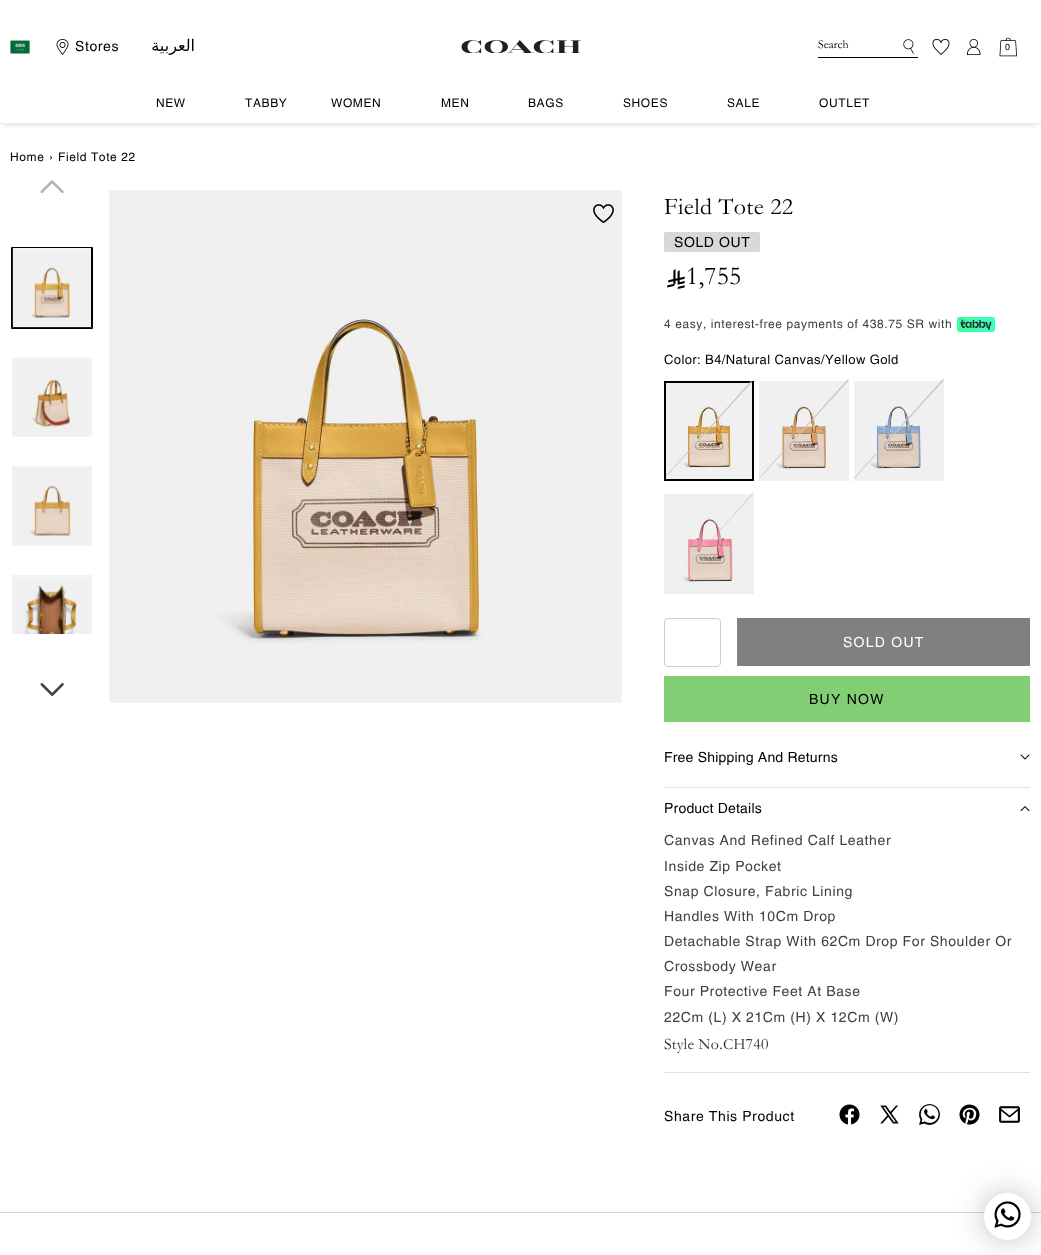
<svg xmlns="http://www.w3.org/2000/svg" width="1041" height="1255">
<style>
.a{font:14px Helvetica;letter-spacing:0.6px;fill:#000}
.b{font:16px DejaVu Sans;letter-spacing:0.6px;direction:rtl;fill:#000}
.c{font:12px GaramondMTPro;fill:#000}
.d{font:9px Helvetica;letter-spacing:0.6px;fill:#000}
.e{font:12px Helvetica;letter-spacing:0.6px;fill:#000}
.f{font:24px GaramondMTPro;letter-spacing:0.4px;fill:#000}
.g{font:26px GaramondMTPro;letter-spacing:0.2px;fill:#000}
.h{font:12px Helvetica;letter-spacing:0.6px;fill:#404040}
.i{font:13px Helvetica;letter-spacing:0.4px;fill:#000}
.j{font:14px Helvetica;letter-spacing:1.25px;fill:#fff}
.k{font:14px Helvetica;letter-spacing:1.25px;fill:#000}
.l{font:14px Helvetica;letter-spacing:0.2px;fill:#000}
.m{font:14px Helvetica;letter-spacing:0.6px;fill:#404040}
.n{font:16px GaramondMTPro;letter-spacing:0.2px;fill:#2f2f2f}
</style>
<defs>
<clipPath id="clip1"><path d="M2 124h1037v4H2z"/></clipPath>
</defs>
<rect width="100%" height="100%" fill="#fff"/>
<g clip-path="url(#clip1)">
<path fill="#0000001a" filter="blur(2px)" d="M3 8h1035v118H3z"/>
</g>
<path fill="#ebebeb" d="M0 123h1041v1H0z"/>
<image href="1.png" x="10" y="40" width="20" height="14"/>
<image href="2.png" x="56" y="39" width="13" height="16"/>
<image href="3.png" x="461" y="40" width="120" height="13"/>
<path fill="#000" d="M818 57h100v1H818z"/>
<image href="4.png" x="903" y="39" width="11" height="15"/>
<image href="5.png" x="932" y="39" width="18" height="16"/>
<image href="6.png" x="967" y="39" width="14" height="16"/>
<image href="7.png" x="999" y="37" width="18" height="20"/>
<image href="8.png" x="40" y="180" width="24" height="14"/>
<path fill="none" stroke="#000" d="M11.5 247.5h81v81H11.5z"/>
<path fill="none" stroke="#000" d="M12.5 247.5h79v80H12.5z"/>
<image href="9.png" x="12" y="248" width="79" height="80"/>
<path fill="none" stroke="#f2f2f2" d="M12.5 357.5h79v79H12.5z"/>
<image href="10.png" x="13" y="358" width="78" height="78"/>
<path fill="none" stroke="#f2f2f2" d="M12.5 466.5h79v79H12.5z"/>
<image href="11.png" x="13" y="467" width="78" height="78"/>
<path fill="#f2f2f2" d="M12 575v59h1v-58h78v58h1v-59z"/>
<image href="12.png" x="13" y="576" width="78" height="58"/>
<image href="13.png" x="40" y="683" width="24" height="13"/>
<path fill="none" stroke="#f2f2f2" d="M109.5 190.5h512v512H109.5z"/>
<image href="14.png" x="110" y="191" width="511" height="511"/>
<image href="15.png" x="593" y="204" width="21" height="20"/>
<rect fill="#d8d8d8" x="664" y="232" width="96" height="20" rx="2"/>
<image href="16.png" x="667" y="269" width="18" height="20"/>
<image href="17.png" x="957" y="317" width="38" height="15"/>
<image href="18.png" x="666" y="383" width="86" height="96"/>
<path fill="none" stroke="#000" stroke-width="2" d="M665 382h88v98H665z"/>
<path fill="#c9c3c3" d="M752 382l-86 95v-1l85-95z"/>
<image href="19.png" x="759" y="381" width="90" height="100"/>
<path fill="#c9c3c3" d="M849 380l-90 99v-1l89-99z"/>
<image href="20.png" x="854" y="381" width="90" height="100"/>
<path fill="#c9c3c3" d="M944 380l-90 99v-1l89-99z"/>
<image href="21.png" x="664" y="494" width="90" height="100"/>
<path fill="#c9c3c3" d="M754 493l-90 99l89-99z"/>
<rect fill="none" stroke="#ccc" x="664.5" y="618.5" width="56" height="48" rx="3.5"/>
<path fill="#808080" d="M737 618h293v48H737z"/>
<path fill="#81ce74" d="M664 676h366v46H664z"/>
<image href="22.png" x="1020" y="754" width="10" height="6"/>
<path fill="#e0e0e0" d="M664 787h366v1H664z"/>
<image href="23.png" x="1020" y="806" width="10" height="5"/>
<path fill="#e0e0e0" d="M664 1072h366v1H664z"/>
<image href="24.png" x="839" y="1104" width="21" height="21"/>
<image href="25.png" x="880" y="1105" width="19" height="19"/>
<image href="26.png" x="919" y="1104" width="21" height="21"/>
<image href="27.png" x="959" y="1104" width="21" height="21"/>
<image href="28.png" x="999" y="1106" width="21" height="17"/>
<path fill="#d2d2d2" d="M0 1212h1041v1H0z"/>
<rect fill="#00000040" filter="blur(15px)" x="984" y="1193" width="47" height="47" rx="23.5"/>
<circle fill="#fff" cx="1007.5" cy="1216.5" r="23.5"/>
<image href="29.png" x="994" y="1201" width="27" height="27"/>
<text class="a" x="75" y="51">Stores</text>
<text class="b" x="195" y="51">العربية</text>
<text class="c" x="818" y="48">Search</text>
<text class="d" x="1005" y="50">0</text>
<text class="e" x="156" y="107">NEW</text>
<text class="e" x="245" y="107">TABBY</text>
<text class="e" x="331" y="107">WOMEN</text>
<text class="e" x="441" y="107">MEN</text>
<text class="e" x="528" y="107">BAGS</text>
<text class="e" x="623" y="107">SHOES</text>
<text class="e" x="727" y="107">SALE</text>
<text class="e" x="819" y="107">OUTLET</text>
<text class="e" x="10" y="161">Home</text>
<text class="e" x="49" y="161">›</text>
<text class="e" x="58" y="161">Field Tote 22</text>
<text class="f" x="664" y="214">Field Tote 22</text>
<text class="a" x="674" y="247">SOLD OUT</text>
<text class="g" x="686" y="284">1,755</text>
<text class="h" x="664" y="328">4 easy, interest-free payments of 438.75 SR with</text>
<text class="i" x="664" y="364">Color: B4/Natural Canvas/Yellow Gold</text>
<text class="j" x="843" y="647">SOLD OUT</text>
<text class="k" x="809" y="704">BUY NOW</text>
<text class="l" x="664" y="762">Free Shipping And Returns</text>
<text class="l" x="664" y="813">Product Details</text>
<text class="m" x="664" y="845">Canvas And Refined Calf Leather</text>
<text class="m" x="664" y="871">Inside Zip Pocket</text>
<text class="m" x="664" y="896">Snap Closure, Fabric Lining</text>
<text class="m" x="664" y="921">Handles With 10Cm Drop</text>
<text class="m" x="664" y="946">Detachable Strap With 62Cm Drop For Shoulder Or</text>
<text class="m" x="664" y="971">Crossbody Wear</text>
<text class="m" x="664" y="996">Four Protective Feet At Base</text>
<text class="m" x="664" y="1022">22Cm (L) X 21Cm (H) X 12Cm (W)</text>
<text class="n" x="664" y="1049">Style No.CH740</text>
<text class="a" x="664" y="1121">Share This Product</text>
</svg>
